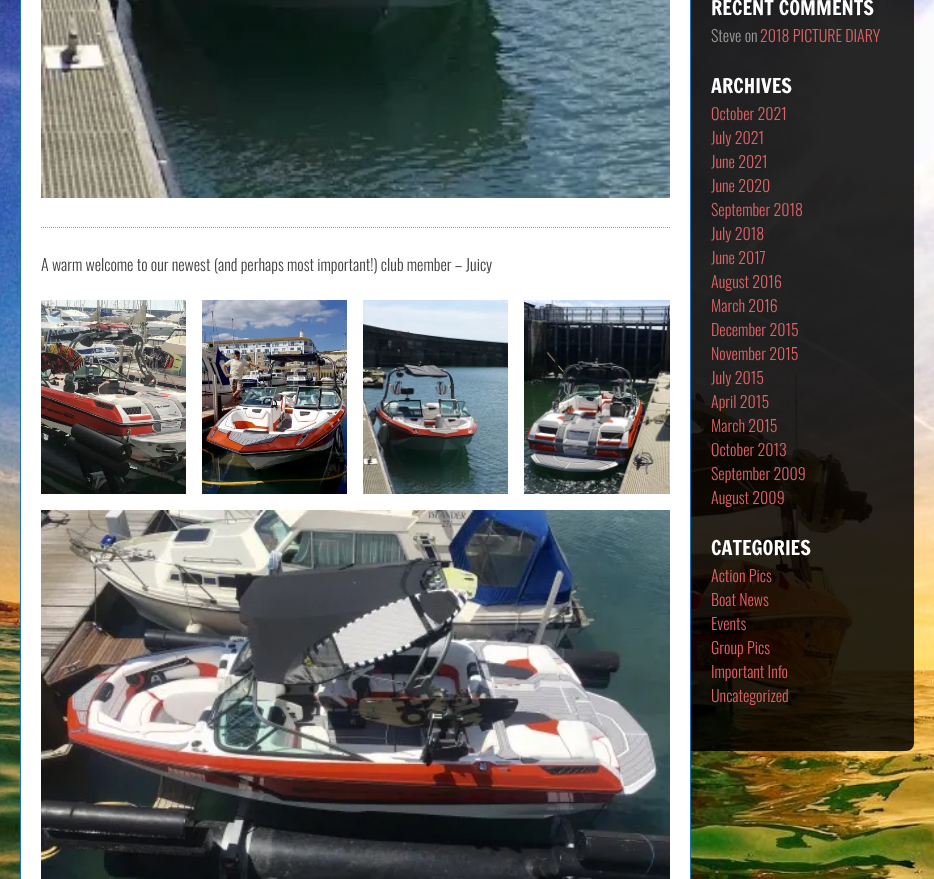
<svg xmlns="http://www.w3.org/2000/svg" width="934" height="879">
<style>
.a{font:300 16px Oswald;fill:#404040}
.b{font:20px Francois One;fill:#fff}
.c{font:300 16px Oswald;fill:#999}
.d{font:300 16px Oswald;fill:#dc6263}
</style>
<rect width="100%" height="100%" fill="#fff"/>
<image href="1.png" x="0" y="0" width="934" height="879"/>
<path fill="#fff" d="M21 0h669v879H21z"/>
<path fill="#1e73be" d="M690 0h1v879H690z"/>
<path fill="#1e73be" d="M20 0h1v879H20z"/>
<path fill="none" stroke="#999" stroke-dasharray="1 1" d="M41 227.5h629"/>
<image href="2.png" x="41" y="0" width="629" height="198"/>
<image href="3.png" x="41" y="300" width="145" height="194"/>
<image href="4.png" x="202" y="300" width="145" height="194"/>
<image href="5.png" x="363" y="300" width="145" height="194"/>
<image href="6.png" x="524" y="300" width="146" height="194"/>
<image href="7.png" x="41" y="510" width="629" height="369"/>
<path fill="#000000d9" d="M691-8h215c4.5 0 8 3.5 8 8v743c0 4.5-3.5 8-8 8h-215z"/>
<text class="a" x="41" y="271">A warm welcome to our newest (and perhaps most important!) club member – Juicy</text>
<text class="b" x="711" y="15">RECENT COMMENTS</text>
<text class="c" x="711" y="42">Steve on</text>
<text class="d" x="760" y="42">2018 PICTURE DIARY</text>
<text class="b" x="711" y="93">ARCHIVES</text>
<text class="d" x="711" y="120">October 2021</text>
<text class="d" x="711" y="144">July 2021</text>
<text class="d" x="711" y="168">June 2021</text>
<text class="d" x="711" y="192">June 2020</text>
<text class="d" x="711" y="216">September 2018</text>
<text class="d" x="711" y="240">July 2018</text>
<text class="d" x="711" y="264">June 2017</text>
<text class="d" x="711" y="288">August 2016</text>
<text class="d" x="711" y="312">March 2016</text>
<text class="d" x="711" y="336">December 2015</text>
<text class="d" x="711" y="360">November 2015</text>
<text class="d" x="711" y="384">July 2015</text>
<text class="d" x="711" y="408">April 2015</text>
<text class="d" x="711" y="432">March 2015</text>
<text class="d" x="711" y="456">October 2013</text>
<text class="d" x="711" y="480">September 2009</text>
<text class="d" x="711" y="504">August 2009</text>
<text class="b" x="711" y="555">CATEGORIES</text>
<text class="d" x="711" y="582">Action Pics</text>
<text class="d" x="711" y="606">Boat News</text>
<text class="d" x="711" y="630">Events</text>
<text class="d" x="711" y="654">Group Pics</text>
<text class="d" x="711" y="678">Important Info</text>
<text class="d" x="711" y="702">Uncategorized</text>
</svg>
